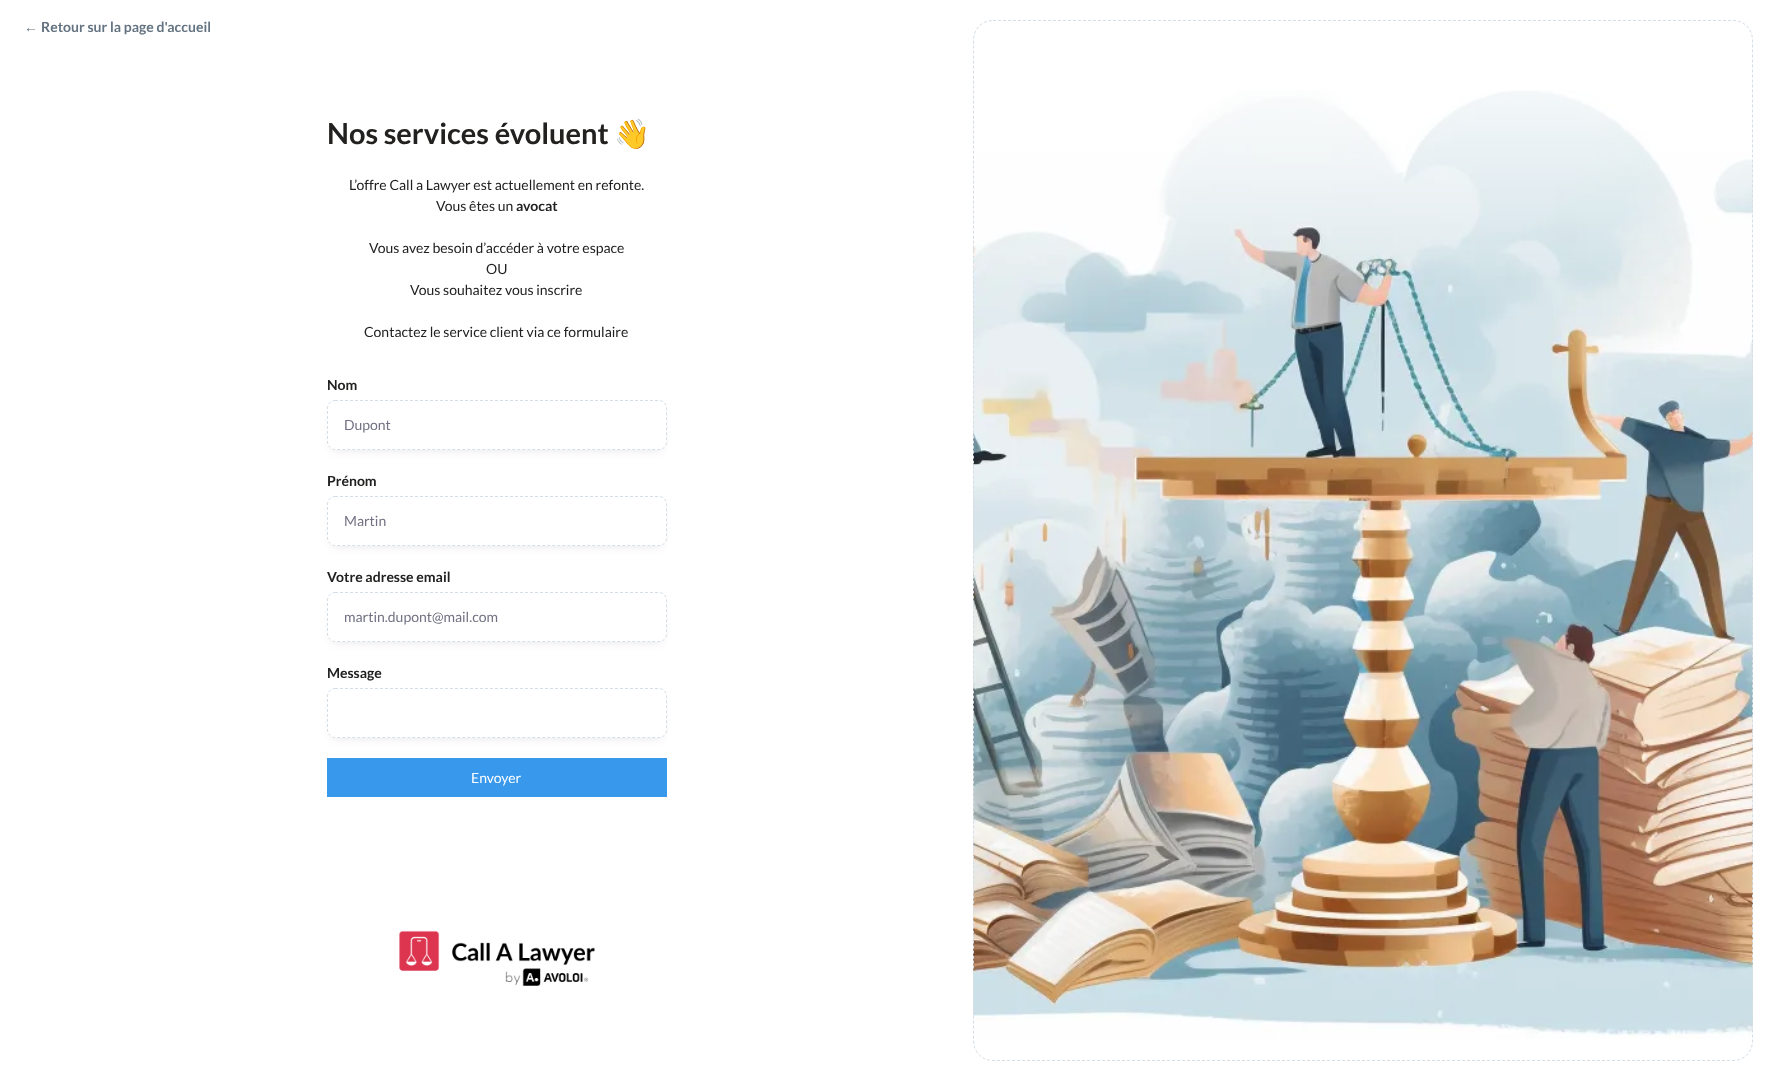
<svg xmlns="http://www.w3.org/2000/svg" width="1773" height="1081">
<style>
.a{font:bold 14px Liberation Sans;fill:#637381}
.b{font:bold 14px Lato;fill:#637381}
.c{font:bold 29px Lato;fill:#222120}
.d{font:bold 29px Noto Color Emoji;fill:#222120}
.e{font:14px Lato;fill:#222120}
.f{font:bold 14px Lato;fill:#222120}
.g{font:14px Lato;fill:#717183}
.h{font:14px Lato;fill:#fff}
</style>
<rect width="100%" height="100%" fill="#fff"/>
<image href="1.png" x="973" y="90" width="780" height="949"/>
<path fill="none" stroke="#d5dee6" stroke-dasharray="3 2" d="M993 20.5h740c11 0 19.5 8.5 19.5 19.5v1001c0 11-8.5 19.5-19.5 19.5h-740c-11 0-19.5-8.5-19.5-19.5v-1001c0-11 8.5-19.5 19.5-19.5z"/>
<rect fill="#0000001a" filter="blur(5px)" x="332" y="410" width="330" height="40" rx="3"/>
<rect fill="#fff" x="327" y="400" width="340" height="50" rx="8"/>
<path fill="none" stroke="#d5dee6" stroke-dasharray="3 2" d="M335 400.5h324c4 0 7.5 3.5 7.5 7.5v34c0 4-3.5 7.5-7.5 7.5h-324c-4 0-7.5-3.5-7.5-7.5v-34c0-4 3.5-7.5 7.5-7.5z"/>
<rect fill="#0000001a" filter="blur(5px)" x="332" y="506" width="330" height="40" rx="3"/>
<rect fill="#fff" x="327" y="496" width="340" height="50" rx="8"/>
<path fill="none" stroke="#d5dee6" stroke-dasharray="3 2" d="M335 496.5h324c4 0 7.5 3.5 7.5 7.5v34c0 4-3.5 7.5-7.5 7.5h-324c-4 0-7.5-3.5-7.5-7.5v-34c0-4 3.5-7.5 7.5-7.5z"/>
<rect fill="#0000001a" filter="blur(5px)" x="332" y="602" width="330" height="40" rx="3"/>
<rect fill="#fff" x="327" y="592" width="340" height="50" rx="8"/>
<path fill="none" stroke="#d5dee6" stroke-dasharray="3 2" d="M335 592.5h324c4 0 7.5 3.5 7.5 7.5v34c0 4-3.5 7.5-7.5 7.5h-324c-4 0-7.5-3.5-7.5-7.5v-34c0-4 3.5-7.5 7.5-7.5z"/>
<rect fill="#0000001a" filter="blur(5px)" x="332" y="698" width="330" height="40" rx="3"/>
<rect fill="#fff" x="327" y="688" width="340" height="50" rx="8"/>
<path fill="none" stroke="#d5dee6" stroke-dasharray="3 2" d="M335 688.5h324c4 0 7.5 3.5 7.5 7.5v34c0 4-3.5 7.5-7.5 7.5h-324c-4 0-7.5-3.5-7.5-7.5v-34c0-4 3.5-7.5 7.5-7.5z"/>
<path fill="#3898ec" d="M327 758h340v39H327z"/>
<image href="2.png" x="399" y="930" width="196" height="56"/>
<text class="a" x="24" y="32">←</text>
<text class="b" x="41" y="32">Retour sur la page d'accueil</text>
<text class="c" x="327" y="144">Nos services évoluent</text>
<text class="d" x="614" y="144">👋</text>
<text class="e" x="349" y="190">L’offre Call a Lawyer est actuellement en refonte.</text>
<text class="e" x="436" y="211">Vous êtes un</text>
<text class="f" x="516" y="211">avocat</text>
<text class="e" x="369" y="253">Vous avez besoin d’accéder à votre espace</text>
<text class="e" x="486" y="274">OU</text>
<text class="e" x="410" y="295">Vous souhaitez vous inscrire</text>
<text class="e" x="364" y="337">Contactez le service client via ce formulaire</text>
<text class="f" x="327" y="390">Nom</text>
<text class="g" x="344" y="430">Dupont</text>
<text class="f" x="327" y="486">Prénom</text>
<text class="g" x="344" y="526">Martin</text>
<text class="f" x="327" y="582">Votre adresse email</text>
<text class="g" x="344" y="622">martin.dupont@mail.com</text>
<text class="f" x="327" y="678">Message</text>
<text class="h" x="471" y="783">Envoyer</text>
</svg>
